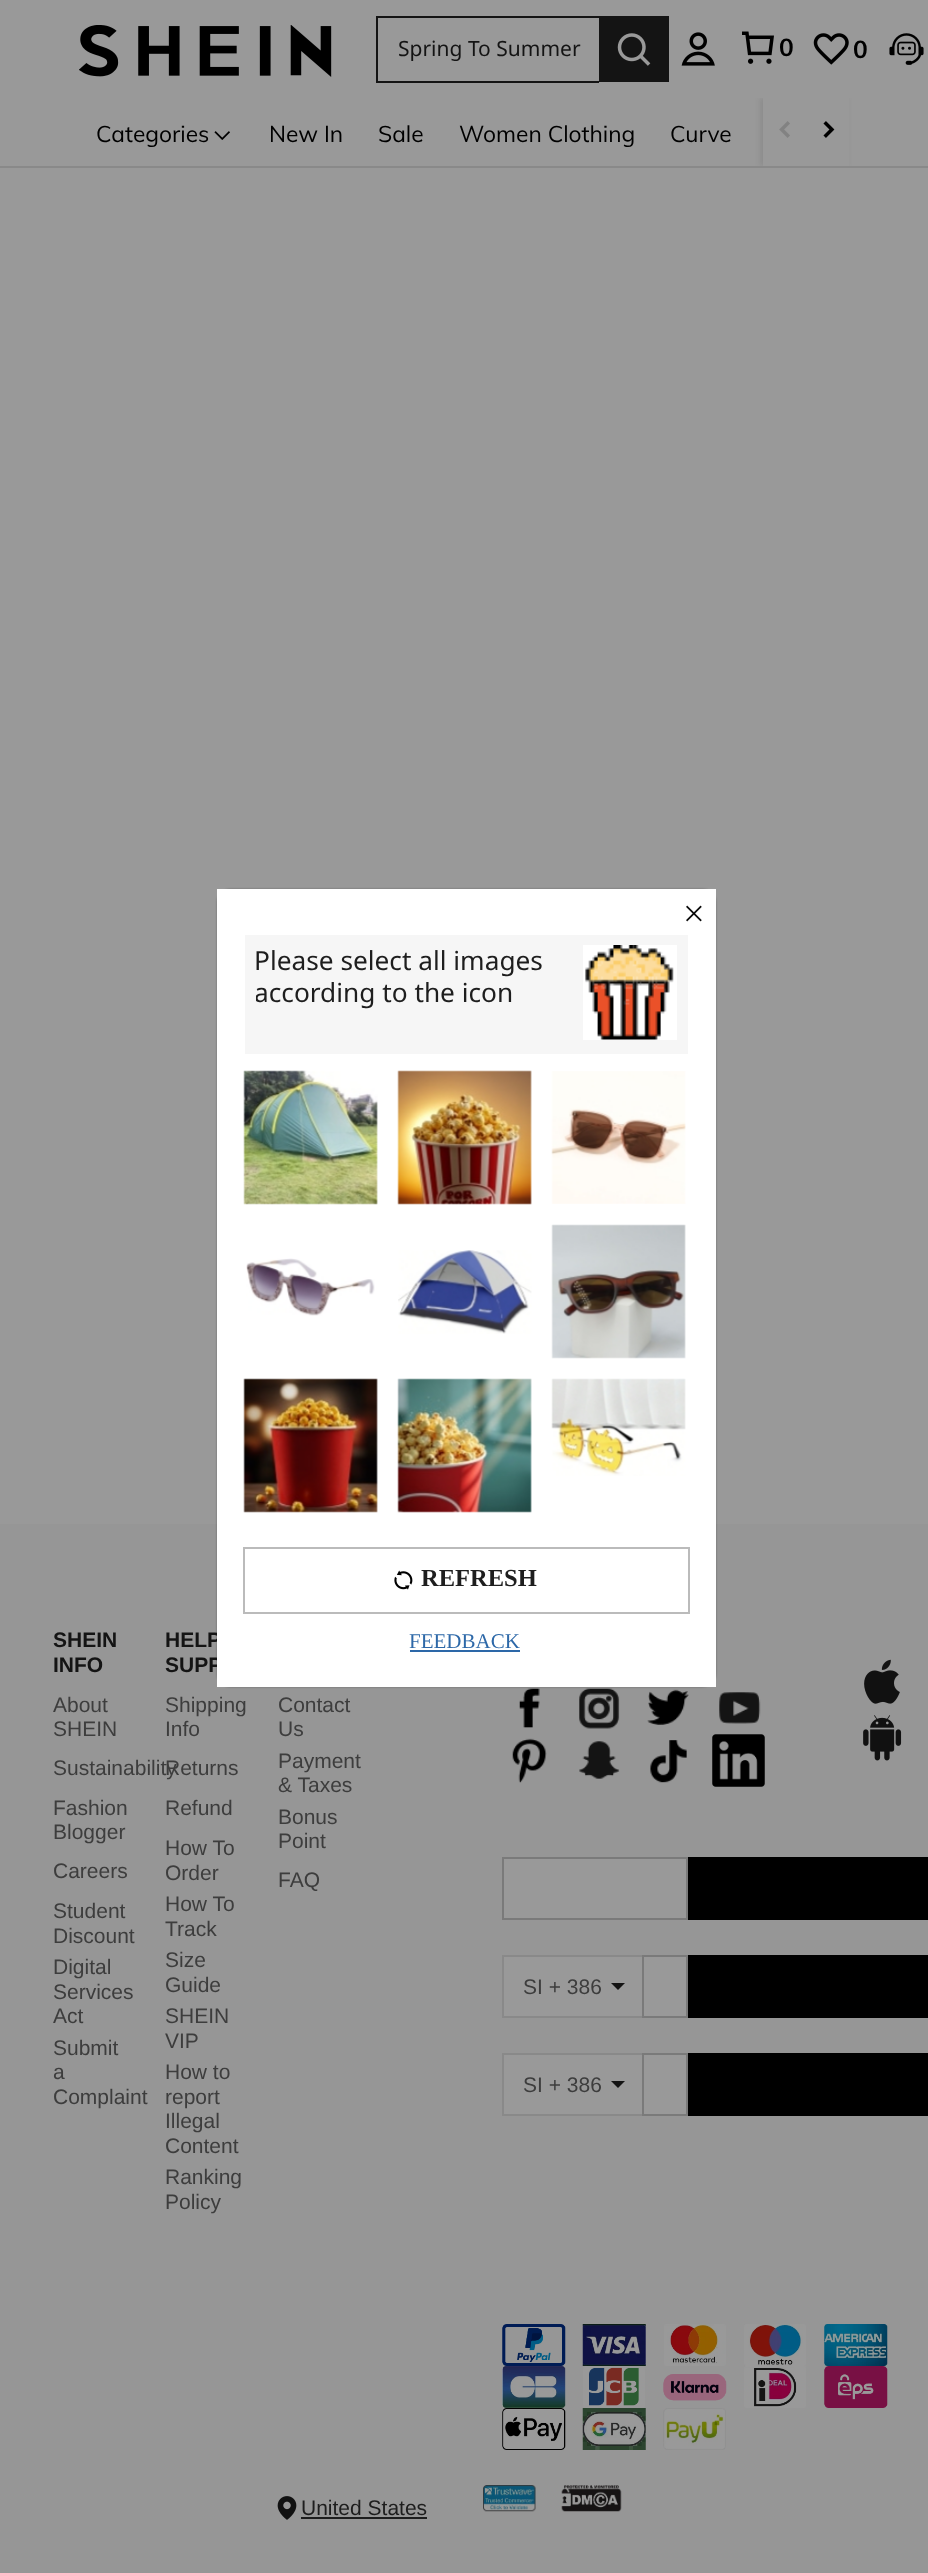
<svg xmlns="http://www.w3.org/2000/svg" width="928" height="2573">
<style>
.a{font:21px Noto Sans;fill:#141414}
.b{font:bold 24.5px Muli;fill:#000}
.c{font:22.75px Muli;fill:#000}
.d{font:bold 21px Liberation Sans;fill:#141414}
.e{font:21px Liberation Sans;fill:#3d3d3d}
.f{font:21px Liberation Sans;fill:#1e1e1e}
.g{font:26.25px Noto Sans;fill:#1e1e1e}
.h{font:bold 24.5px Liberation Serif;fill:#1e1e1e}
.i{font:21px Liberation Serif;fill:#2d68a8}
</style>
<defs>
<clipPath id="clip1"><path d="M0 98h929v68H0z"/></clipPath>
<clipPath id="clip2"><path d="M256 945h315v98H256z"/></clipPath>
</defs>
<rect width="100%" height="100%" fill="#999"/>
<image href="1.png" x="79" y="25" width="253" height="52"/>
<path fill="#141414" d="M376 16h223v2H376z"/>
<path fill="#141414" d="M376 81h223v2H376z"/>
<path fill="#141414" d="M376 16h2v66H376z"/>
<path fill="#141414" d="M599 16h70v66H599z"/>
<image href="2.png" x="617" y="33" width="34" height="33"/>
<image href="3.png" x="681" y="32" width="34" height="34"/>
<image href="4.png" x="742" y="31" width="32" height="33"/>
<image href="5.png" x="813" y="33" width="36" height="32"/>
<image href="6.png" x="889" y="33" width="35" height="32"/>
<path fill="#898989" d="M0 166h928v2H0z"/>
<image href="7.png" x="214" y="131" width="16" height="9"/>
<g clip-path="url(#clip1)">
<path fill="#00000014" filter="blur(2.5px)" d="M760 98h87v68H760z"/>
</g>
<path fill="#999" d="M763 98h86v68H763z"/>
<image href="8.png" x="779" y="121" width="11" height="17"/>
<image href="9.png" x="823" y="121" width="12" height="17"/>
<path fill="#969696" d="M0 1524h928v1049H0z"/>
<image href="10.png" x="519" y="1688" width="21" height="40"/>
<image href="11.png" x="579" y="1688" width="41" height="41"/>
<image href="12.png" x="647" y="1689" width="42" height="36"/>
<image href="13.png" x="719" y="1692" width="42" height="32"/>
<image href="14.png" x="512" y="1738" width="35" height="45"/>
<image href="15.png" x="579" y="1741" width="41" height="38"/>
<image href="16.png" x="650" y="1740" width="37" height="43"/>
<image href="17.png" x="712" y="1734" width="53" height="53"/>
<image href="18.png" x="864" y="1659" width="36" height="45"/>
<image href="19.png" x="863" y="1715" width="39" height="46"/>
<path fill="#999" stroke="#7a7a7a" stroke-width="2" d="M503 1858h184v61H503z"/>
<path fill="#000" d="M688 1857h240v63H688z"/>
<path fill="#999" d="M504 1957h138v59H504z"/>
<path fill="#898989" d="M502 1955h140v2H502z"/>
<path fill="#898989" d="M502 2016h140v2H502z"/>
<path fill="#898989" d="M502 1955h2v63H502z"/>
<path fill="#141414" d="M611 1983h14l-7 7z"/>
<path fill="#999" stroke="#7a7a7a" stroke-width="2" d="M643 1956h44v61H643z"/>
<path fill="#000" d="M688 1955h240v63H688z"/>
<path fill="#999" d="M504 2055h138v59H504z"/>
<path fill="#898989" d="M502 2053h140v2H502z"/>
<path fill="#898989" d="M502 2114h140v2H502z"/>
<path fill="#898989" d="M502 2053h2v63H502z"/>
<path fill="#141414" d="M611 2081h14l-7 7z"/>
<path fill="#999" stroke="#7a7a7a" stroke-width="2" d="M643 2054h44v61H643z"/>
<path fill="#000" d="M688 2053h240v63H688z"/>
<image href="20.png" x="502" y="2324" width="64" height="42"/>
<image href="21.png" x="582" y="2324" width="64" height="42"/>
<image href="22.png" x="664" y="2324" width="62" height="42"/>
<image href="23.png" x="744" y="2324" width="62" height="42"/>
<image href="24.png" x="824" y="2324" width="64" height="42"/>
<image href="25.png" x="502" y="2366" width="64" height="42"/>
<image href="26.png" x="583" y="2366" width="62" height="42"/>
<image href="27.png" x="663" y="2374" width="64" height="27"/>
<image href="28.png" x="744" y="2366" width="62" height="42"/>
<image href="29.png" x="824" y="2366" width="64" height="42"/>
<image href="30.png" x="502" y="2408" width="64" height="42"/>
<image href="31.png" x="582" y="2408" width="64" height="42"/>
<image href="32.png" x="663" y="2408" width="63" height="42"/>
<image href="33.png" x="277" y="2496" width="20" height="24"/>
<path fill="#1e1e1e" d="M301 2517h126v2H301z"/>
<image href="34.png" x="483" y="2485" width="53" height="27"/>
<image href="35.png" x="561" y="2485" width="61" height="27"/>
<rect fill="#0000004d" filter="blur(1px)" x="217" y="889" width="499" height="798" rx="14"/>
<text class="a" x="398" y="56">Spring To Summer</text>
<text class="b" x="779" y="56">0</text>
<text class="b" x="853" y="58">0</text>
<text class="c" x="96" y="142">Categories</text>
<text class="c" x="269" y="142">New In</text>
<text class="c" x="378" y="142">Sale</text>
<text class="c" x="459" y="142">Women Clothing</text>
<text class="c" x="670" y="142">Curve</text>
<text class="d" x="53" y="1647">SHEIN</text>
<text class="d" x="53" y="1672">INFO</text>
<text class="e" x="53" y="1712">About</text>
<text class="e" x="53" y="1736">SHEIN</text>
<text class="e" x="53" y="1775">Sustainability</text>
<text class="e" x="53" y="1815">Fashion</text>
<text class="e" x="53" y="1839">Blogger</text>
<text class="e" x="53" y="1878">Careers</text>
<text class="e" x="53" y="1918">Student</text>
<text class="e" x="53" y="1943">Discount</text>
<text class="e" x="53" y="1974">Digital</text>
<text class="e" x="53" y="1999">Services</text>
<text class="e" x="53" y="2023">Act</text>
<text class="e" x="53" y="2055">Submit</text>
<text class="e" x="53" y="2079">a</text>
<text class="e" x="53" y="2104">Complaint</text>
<text class="d" x="165" y="1647">HELP</text>
<text class="d" x="165" y="1672">SUPP</text>
<text class="e" x="165" y="1712">Shipping</text>
<text class="e" x="165" y="1736">Info</text>
<text class="e" x="165" y="1775">Returns</text>
<text class="e" x="165" y="1815">Refund</text>
<text class="e" x="165" y="1855">How To</text>
<text class="e" x="165" y="1880">Order</text>
<text class="e" x="165" y="1911">How To</text>
<text class="e" x="165" y="1936">Track</text>
<text class="e" x="165" y="1967">Size</text>
<text class="e" x="165" y="1992">Guide</text>
<text class="e" x="165" y="2023">SHEIN</text>
<text class="e" x="165" y="2048">VIP</text>
<text class="e" x="165" y="2079">How to</text>
<text class="e" x="165" y="2104">report</text>
<text class="e" x="165" y="2128">Illegal</text>
<text class="e" x="165" y="2153">Content</text>
<text class="e" x="165" y="2184">Ranking</text>
<text class="e" x="165" y="2209">Policy</text>
<text class="e" x="278" y="1712">Contact</text>
<text class="e" x="278" y="1736">Us</text>
<text class="e" x="278" y="1768">Payment</text>
<text class="e" x="278" y="1792">&amp; Taxes</text>
<text class="e" x="278" y="1824">Bonus</text>
<text class="e" x="278" y="1848">Point</text>
<text class="e" x="278" y="1887">FAQ</text>
<text class="e" x="523" y="1994">SI + 386</text>
<text class="e" x="523" y="2092">SI + 386</text>
<text class="f" x="301" y="2515">United States</text>
<path fill="#fff" d="M217 889h499v798H217z"/>
<image href="36.png" x="686" y="905" width="16" height="17"/>
<path fill="#f6f6f6" d="M245 935h443v119H245z"/>
<text class="g" x="254" y="970">Please select all images</text>
<g clip-path="url(#clip2)">
<text class="g" x="254" y="1002">according to the icon</text>
</g>
<path fill="#fff" d="M583 945h94v95H583z"/>
<image href="37.png" x="585" y="945" width="89" height="95"/>
<image href="38.png" x="243" y="1070" width="135" height="135"/>
<image href="39.png" x="397" y="1070" width="135" height="135"/>
<image href="40.png" x="551" y="1071" width="135" height="133"/>
<image href="41.png" x="246" y="1258" width="129" height="58"/>
<image href="42.png" x="398" y="1250" width="134" height="84"/>
<image href="43.png" x="551" y="1224" width="135" height="135"/>
<image href="44.png" x="243" y="1378" width="135" height="135"/>
<image href="45.png" x="397" y="1378" width="135" height="135"/>
<image href="46.png" x="551" y="1378" width="135" height="98"/>
<path fill="none" stroke="#bbb" stroke-width="2" d="M244 1548h445v65H244z"/>
<image href="47.png" x="394" y="1570" width="19" height="20"/>
<text class="h" x="421" y="1586">REFRESH</text>
<text class="i" x="409" y="1648">FEEDBACK</text>
<path fill="#2d68a8" d="M410 1650h110v2H410z"/>
</svg>
